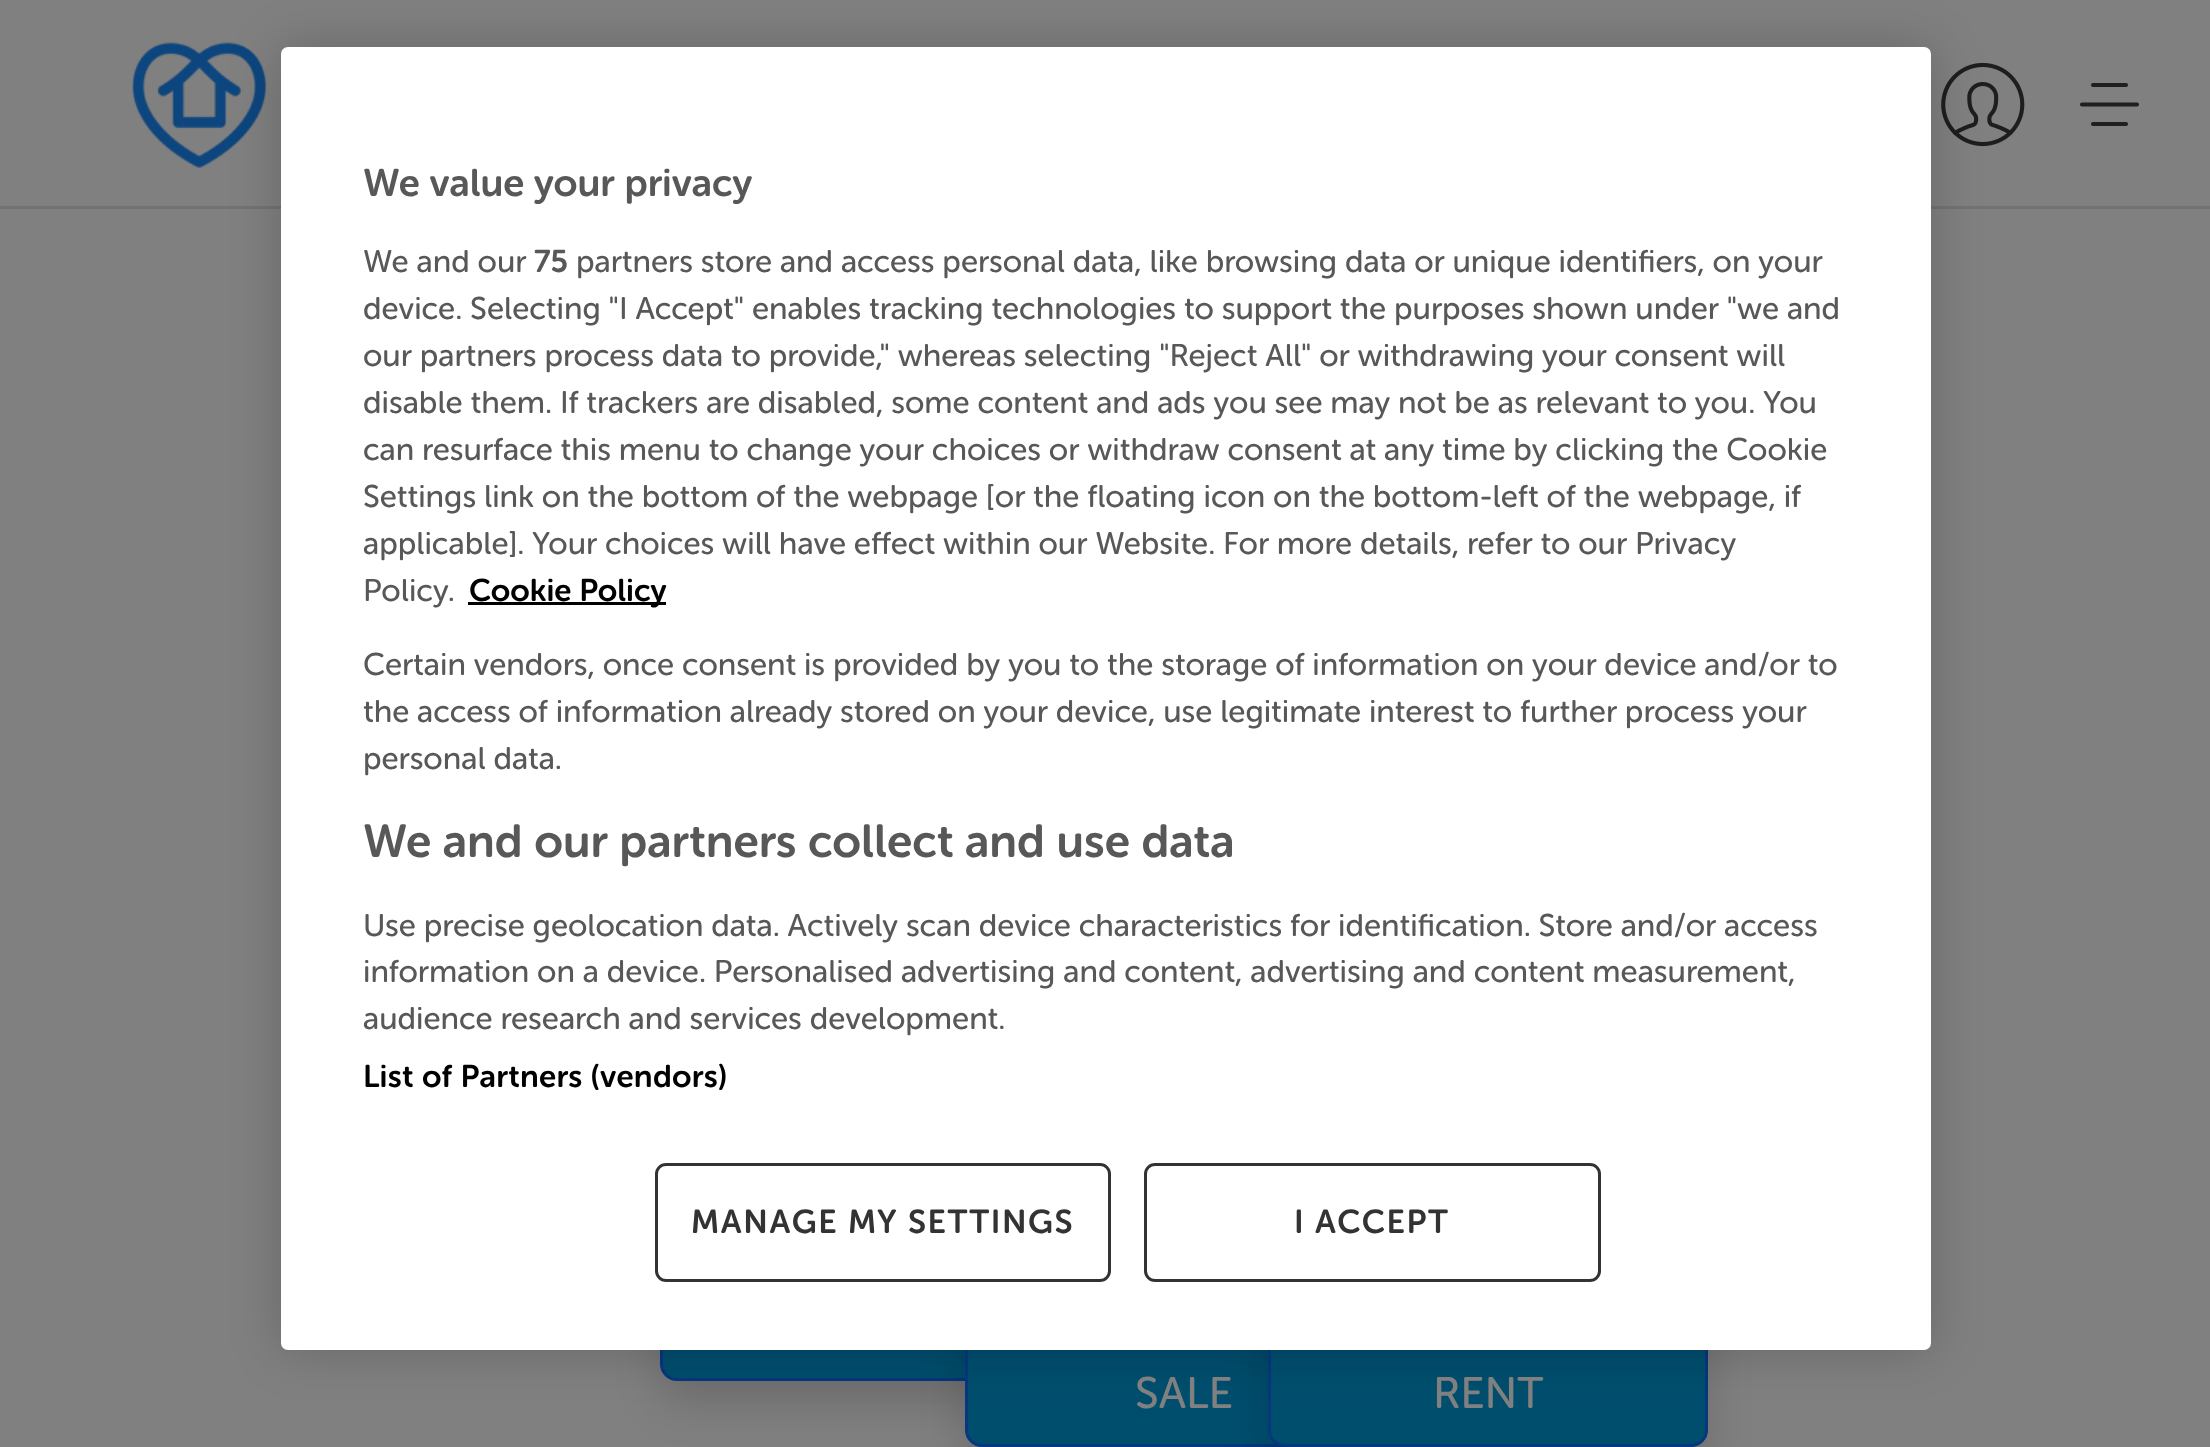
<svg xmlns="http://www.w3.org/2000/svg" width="2210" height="1447">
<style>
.a{font:600 38.5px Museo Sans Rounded;fill:#585858}
.b{font:31.3px Museo Sans Rounded;fill:#585858}
.c{font:600 31.3px Museo Sans Rounded;fill:#585858}
.d{font:600 31.3px Museo Sans Rounded;fill:#000}
.e{font:600 46.25px Museo Sans Rounded;fill:#585858}
.f{font:600 31.3px Museo Sans Rounded;letter-spacing:0.3px;fill:#000}
.g{font:600 33px Museo Sans Rounded;letter-spacing:1.6px;fill:#333}
.h{font:44px Museo Sans Rounded;fill:#808080}
</style>
<rect width="100%" height="100%" fill="#808080"/>
<path fill="#717375" d="M0 206h2210v3H0z"/>
<image href="1.png" x="132" y="42" width="135" height="126"/>
<image href="2.png" x="1941" y="62" width="84" height="85"/>
<rect fill="#00000026" filter="blur(22px)" x="660" y="1298" width="440" height="105" rx="17"/>
<rect fill="#004e6e" stroke="#07377f" stroke-width="3" x="661.5" y="1277.5" width="437" height="102" rx="15.5"/>
<rect fill="#00000026" filter="blur(22px)" x="965" y="1298" width="440" height="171" rx="17"/>
<rect fill="#004e6e" stroke="#07377f" stroke-width="3" x="966.5" y="1277.5" width="437" height="168" rx="15.5"/>
<rect fill="#00000026" filter="blur(22px)" x="1268" y="1298" width="440" height="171" rx="17"/>
<rect fill="#004e6e" stroke="#07377f" stroke-width="3" x="1269.5" y="1277.5" width="437" height="168" rx="15.5"/>
<rect fill="#00000033" filter="blur(25px)" x="281" y="47" width="1650" height="1303" rx="7"/>
<rect fill="#fff" x="281" y="47" width="1650" height="1303" rx="7"/>
<path fill="#000" d="M468 602h198v3H468z"/>
<rect fill="none" stroke="#333" stroke-width="3" x="656.5" y="1164.5" width="453" height="116" rx="9.5"/>
<rect fill="none" stroke="#333" stroke-width="3" x="1145.5" y="1164.5" width="454" height="116" rx="9.5"/>
<path fill="none" stroke="#1d1f20" stroke-width="4.1" stroke-linecap="round" d="M2082 104.5h55m-44-19.5h33m-33 39h33"/>
<text class="a" x="363" y="196">We value your privacy</text>
<text class="b" x="363" y="272">We and our</text>
<text class="c" x="534" y="272">75</text>
<text class="b" x="576" y="272">partners store and access personal data, like browsing data or unique identifiers, on your</text>
<text class="b" x="363" y="319">device. Selecting "I Accept" enables tracking technologies to support the purposes shown under "we and</text>
<text class="b" x="363" y="366">our partners process data to provide," whereas selecting "Reject All" or withdrawing your consent will</text>
<text class="b" x="363" y="413">disable them. If trackers are disabled, some content and ads you see may not be as relevant to you. You</text>
<text class="b" x="363" y="460">can resurface this menu to change your choices or withdraw consent at any time by clicking the Cookie</text>
<text class="b" x="363" y="507">Settings link on the bottom of the webpage [or the floating icon on the bottom-left of the webpage, if</text>
<text class="b" x="363" y="554">applicable]. Your choices will have effect within our Website. For more details, refer to our Privacy</text>
<text class="b" x="363" y="601">Policy.</text>
<text class="d" x="469" y="601">Cookie Policy</text>
<text class="b" x="363" y="675">Certain vendors, once consent is provided by you to the storage of information on your device and/or to</text>
<text class="b" x="363" y="722">the access of information already stored on your device, use legitimate interest to further process your</text>
<text class="b" x="363" y="769">personal data.</text>
<text class="e" x="363" y="857">We and our partners collect and use data</text>
<text class="b" x="363" y="936">Use precise geolocation data. Actively scan device characteristics for identification. Store and/or access</text>
<text class="b" x="363" y="982">information on a device. Personalised advertising and content, advertising and content measurement,</text>
<text class="b" x="363" y="1029">audience research and services development.</text>
<text class="f" x="363" y="1087">List of Partners (vendors)</text>
<text class="g" x="691" y="1233">MANAGE MY SETTINGS</text>
<text class="g" x="1294" y="1233">I ACCEPT</text>
<text class="h" x="1135" y="1408">SALE</text>
<text class="h" x="1433" y="1408">RENT</text>
</svg>
